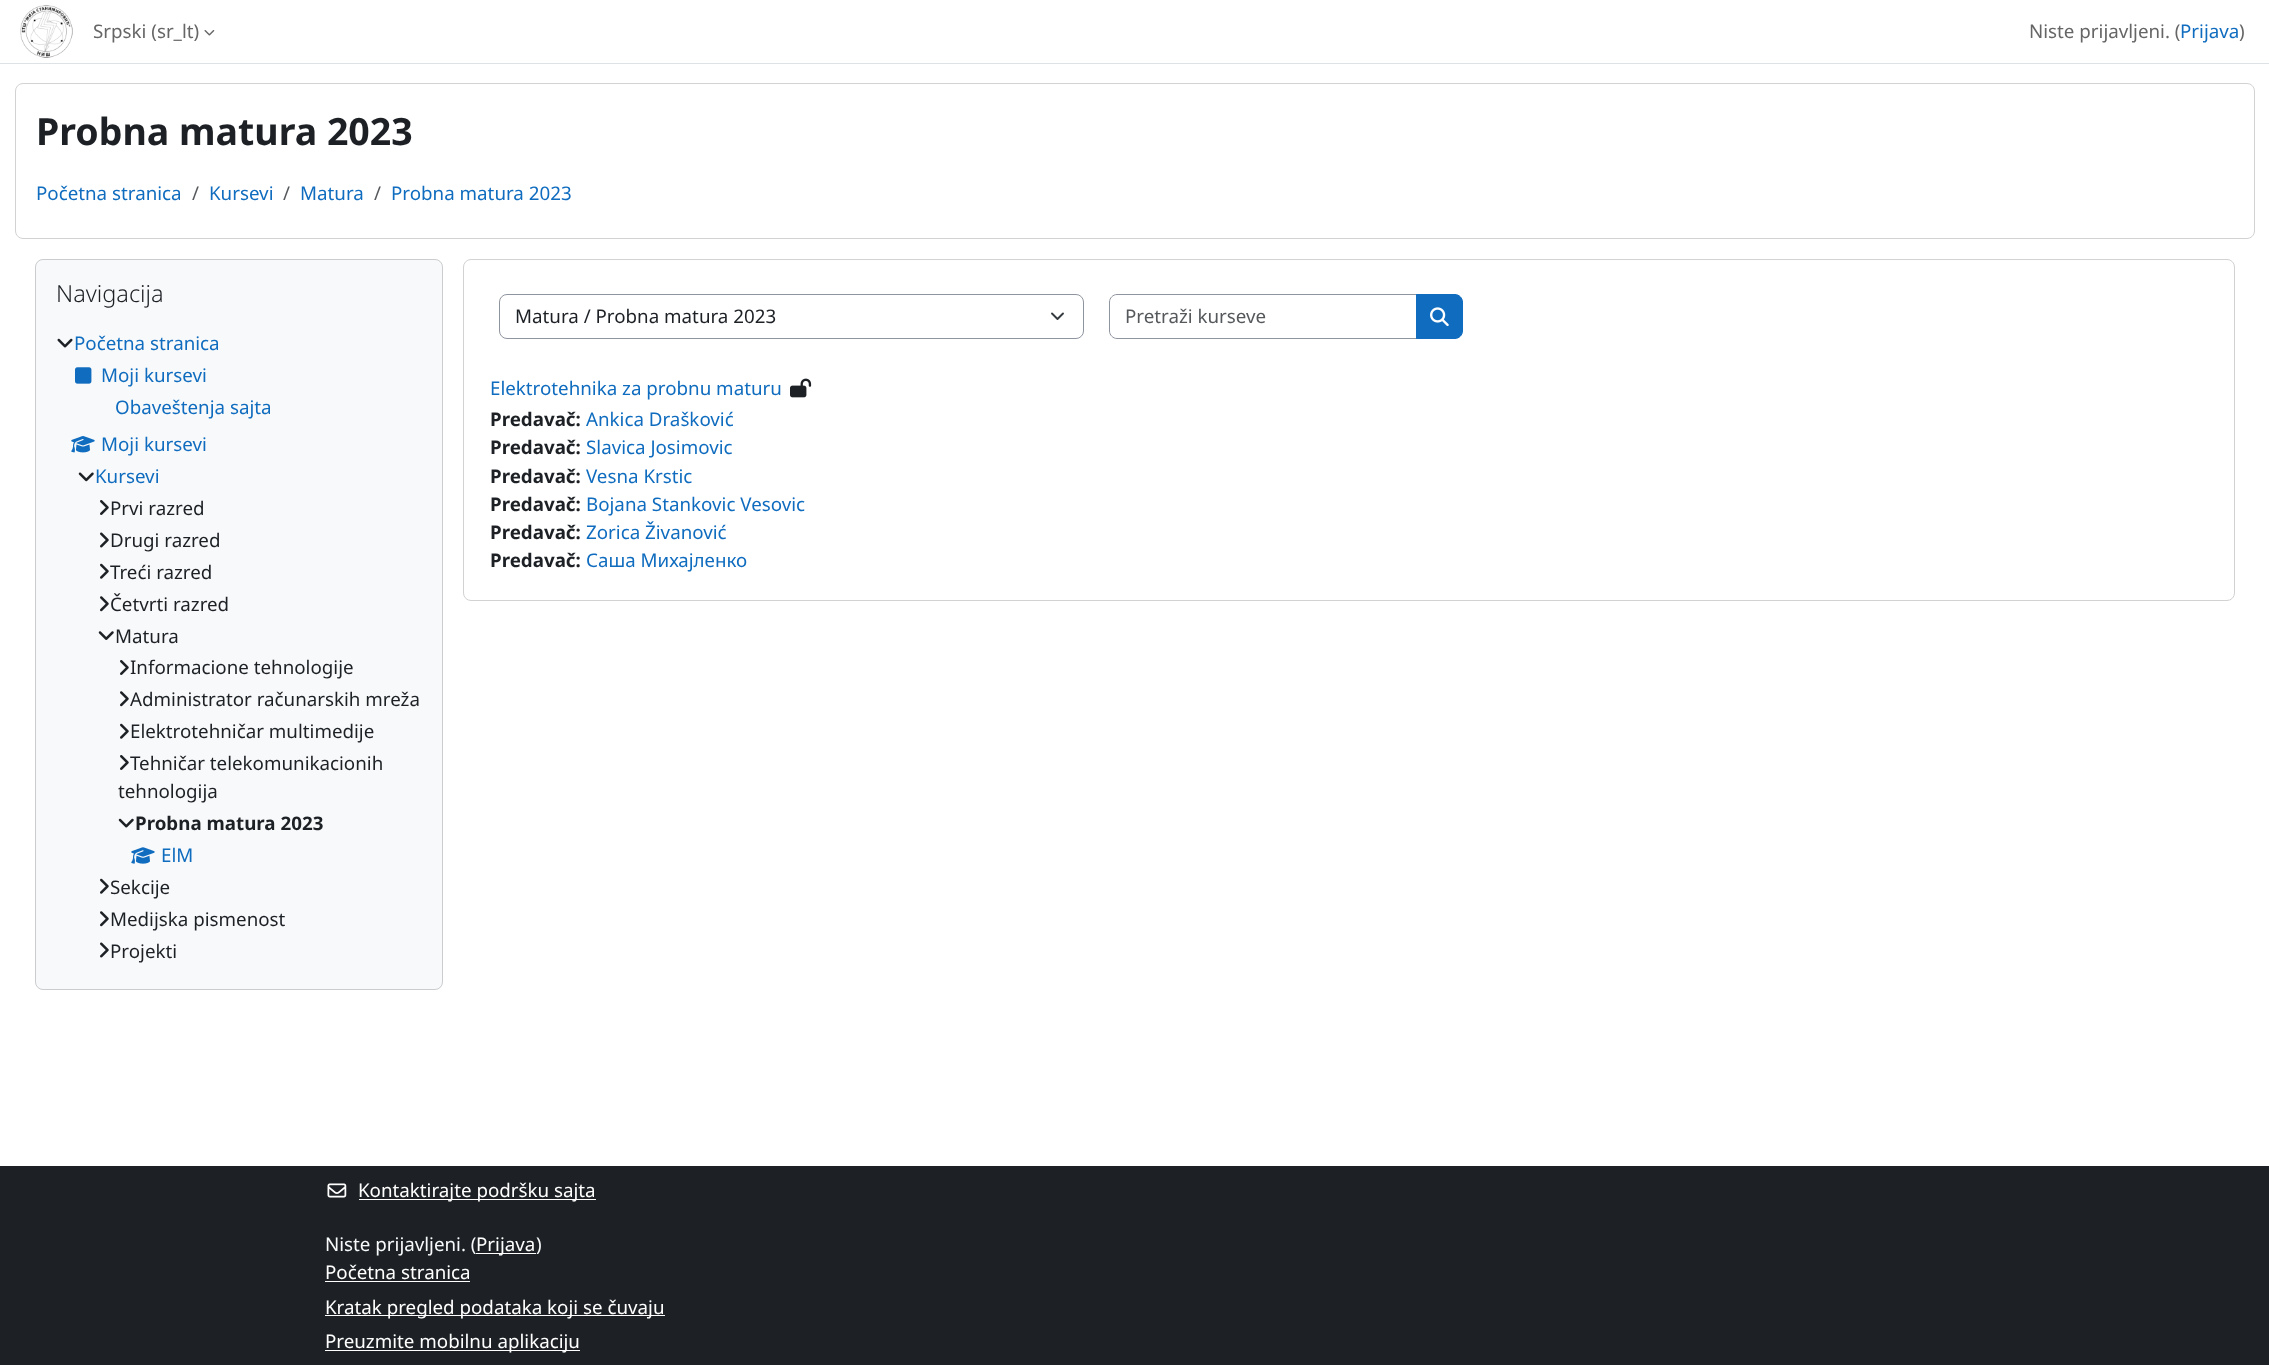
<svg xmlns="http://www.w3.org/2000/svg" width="2269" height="1365">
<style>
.a{font:18.75px Noto Sans;fill:#666}
.b{font:18.75px Noto Sans;fill:#0f6cbf}
.c{font:bold 37.5px Noto Sans;fill:#1d2125}
.d{font:18.75px Noto Sans;fill:#56595c}
.e{font:300 23.5px Noto Sans;fill:#1d2125}
.f{font:18.75px Noto Sans;fill:#1d2125}
.g{font:bold 18.75px Noto Sans;fill:#1d2125}
.h{font:18.75px Noto Sans;fill:#fff}
.i{font:18.75px Noto Sans;fill:#f8f9fa}
</style>
<rect width="100%" height="100%" fill="#fff"/>
<path fill="#dee2e6" d="M0 63h2269v1H0z"/>
<image href="1.png" x="20" y="5" width="53" height="53"/>
<image href="2.png" x="204" y="30" width="11" height="6"/>
<rect fill="none" stroke="#d2d2d2" x="15.5" y="83.5" width="2239" height="155" rx="7.5"/>
<rect fill="#f8f9fa" x="35" y="259" width="408" height="731" rx="8"/>
<rect fill="none" stroke="#0000002e" x="35.5" y="259.5" width="407" height="730" rx="7.5"/>
<image href="3.png" x="57" y="338" width="16" height="10"/>
<image href="4.png" x="75" y="367" width="17" height="17"/>
<image href="5.png" x="71" y="436" width="24" height="17"/>
<image href="6.png" x="78" y="472" width="16" height="10"/>
<image href="7.png" x="100" y="500" width="9" height="15"/>
<image href="8.png" x="100" y="532" width="9" height="16"/>
<image href="9.png" x="100" y="563" width="9" height="16"/>
<image href="10.png" x="100" y="596" width="9" height="16"/>
<image href="11.png" x="98" y="631" width="16" height="9"/>
<image href="7.png" x="120" y="660" width="9" height="15"/>
<image href="10.png" x="120" y="691" width="9" height="16"/>
<image href="9.png" x="120" y="723" width="9" height="16"/>
<image href="7.png" x="120" y="755" width="9" height="15"/>
<image href="12.png" x="118" y="818" width="16" height="10"/>
<image href="13.png" x="131" y="847" width="24" height="17"/>
<image href="9.png" x="100" y="878" width="9" height="16"/>
<image href="10.png" x="100" y="911" width="9" height="16"/>
<image href="8.png" x="100" y="942" width="9" height="16"/>
<rect fill="none" stroke="#d2d2d2" x="463.5" y="259.5" width="1771" height="341" rx="7.5"/>
<path fill="none" stroke="#343a40" stroke-width="1.9" stroke-linecap="round" stroke-linejoin="round" d="M1052 313.5l5.5 5.5l5.5-5.5"/>
<rect fill="none" stroke="#8f959e" x="499.5" y="294.5" width="584" height="44" rx="7.5"/>
<path fill="none" stroke="#8f959e" d="M1117 294.5h301.5v44h-301.5c-4 0-7.5-3.5-7.5-7.5v-29c0-4 3.5-7.5 7.5-7.5z"/>
<path fill="#0f6cbf" stroke="#0f6cbf" d="M1416.5 294.5h38.5c4 0 7.5 3.5 7.5 7.5v29c0 4-3.5 7.5-7.5 7.5h-38.5z"/>
<image href="14.png" x="1430" y="307" width="19" height="20"/>
<image href="15.png" x="790" y="378" width="22" height="20"/>
<path fill="#1d2125" d="M0 1166h2269v199H0z"/>
<image href="16.png" x="327" y="1183" width="20" height="15"/>
<path fill="#fff" d="M359 1199h237v1H359z"/>
<path fill="#fff" d="M476 1253h60v1H476z"/>
<path fill="#fff" d="M325 1281h145v1H325z"/>
<path fill="#fff" d="M325 1315h340v1H325z"/>
<path fill="#fff" d="M325 1350h255v1H325z"/>
<text class="a" x="93" y="38">Srpski (sr_lt)</text>
<text class="a" x="2029" y="38">Niste prijavljeni. (</text>
<text class="b" x="2180" y="38">Prijava</text>
<text class="a" x="2239" y="38">)</text>
<text class="c" x="36" y="145">Probna matura 2023</text>
<text class="b" x="36" y="200">Početna stranica</text>
<text class="d" x="192" y="200">/</text>
<text class="b" x="209" y="200">Kursevi</text>
<text class="d" x="283" y="200">/</text>
<text class="b" x="300" y="200">Matura</text>
<text class="d" x="374" y="200">/</text>
<text class="b" x="391" y="200">Probna matura 2023</text>
<text class="e" x="56" y="302">Navigacija</text>
<text class="b" x="74" y="350">Početna stranica</text>
<text class="b" x="101" y="382">Moji kursevi</text>
<text class="b" x="115" y="414">Obaveštenja sajta</text>
<text class="b" x="101" y="451">Moji kursevi</text>
<text class="b" x="95" y="483">Kursevi</text>
<text class="f" x="110" y="515">Prvi razred</text>
<text class="f" x="110" y="547">Drugi razred</text>
<text class="f" x="110" y="579">Treći razred</text>
<text class="f" x="110" y="611">Četvrti razred</text>
<text class="f" x="115" y="643">Matura</text>
<text class="f" x="130" y="674">Informacione tehnologije</text>
<text class="f" x="130" y="706">Administrator računarskih mreža</text>
<text class="f" x="130" y="738">Elektrotehničar multimedije</text>
<text class="f" x="130" y="770">Tehničar telekomunikacionih</text>
<text class="f" x="118" y="798">tehnologija</text>
<text class="g" x="135" y="830">Probna matura 2023</text>
<text class="b" x="161" y="862">ElM</text>
<text class="f" x="110" y="894">Sekcije</text>
<text class="f" x="110" y="926">Medijska pismenost</text>
<text class="f" x="110" y="958">Projekti</text>
<text class="f" x="515" y="323">Matura / Probna matura 2023</text>
<text class="d" x="1125" y="323">Pretraži kurseve</text>
<text class="b" x="490" y="395">Elektrotehnika za probnu maturu</text>
<text class="g" x="490" y="426">Predavač:</text>
<text class="b" x="586" y="426">Ankica Drašković</text>
<text class="g" x="490" y="454">Predavač:</text>
<text class="b" x="586" y="454">Slavica Josimovic</text>
<text class="g" x="490" y="483">Predavač:</text>
<text class="b" x="586" y="483">Vesna Krstic</text>
<text class="g" x="490" y="511">Predavač:</text>
<text class="b" x="586" y="511">Bojana Stankovic Vesovic</text>
<text class="g" x="490" y="539">Predavač:</text>
<text class="b" x="586" y="539">Zorica Živanović</text>
<text class="g" x="490" y="567">Predavač:</text>
<text class="b" x="586" y="567">Саша Михајленко</text>
<text class="h" x="358" y="1197">Kontaktirajte podršku sajta</text>
<text class="i" x="325" y="1251">Niste prijavljeni. (</text>
<text class="h" x="476" y="1251">Prijava</text>
<text class="i" x="536" y="1251">)</text>
<text class="h" x="325" y="1279">Početna stranica</text>
<text class="h" x="325" y="1314">Kratak pregled podataka koji se čuvaju</text>
<text class="h" x="325" y="1348">Preuzmite mobilnu aplikaciju</text>
</svg>
